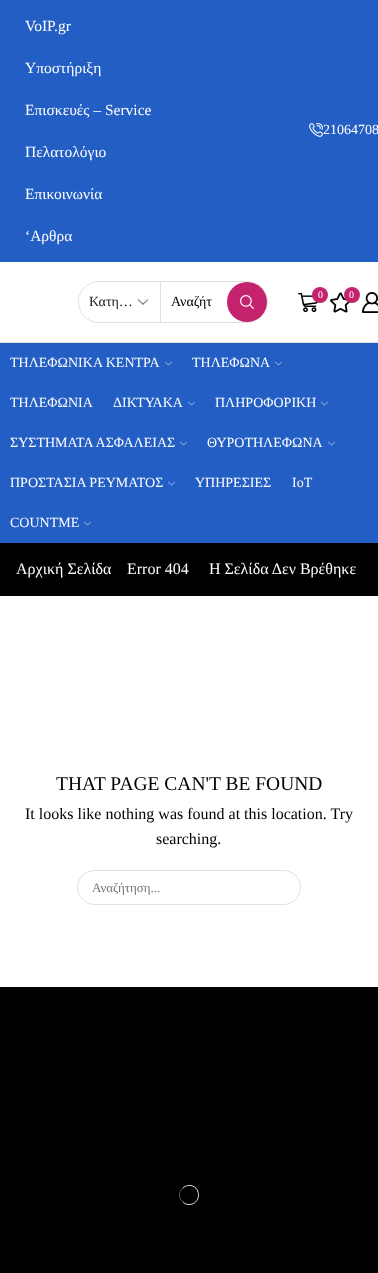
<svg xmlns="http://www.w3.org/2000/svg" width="378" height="1273">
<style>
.a{font:15.5px Liberation Serif;fill:#fff}
.b{font:14px Liberation Serif;fill:#fff}
.c{font:14px Liberation Serif;fill:#222}
.d{font:14px Liberation Serif;fill:#000}
.e{font:10px Liberation Serif;fill:#fff}
.f{font:16px Liberation Serif;fill:#fff}
.g{font:19.5px Liberation Serif;fill:#000}
.h{font:16px Liberation Serif;fill:#000}
.i{font:13px Liberation Serif;fill:#757575}
</style>
<rect width="100%" height="100%" fill="#fff"/>
<path fill="#235ec5" d="M0 0h378v262H0z"/>
<image href="1.png" x="309" y="123" width="14" height="14"/>
<path fill="#e1e1e1" d="M0 342h378v1H0z"/>
<rect fill="none" stroke="#e1e1e1" x="78.5" y="281.5" width="189" height="41" rx="20.5"/>
<image href="2.png" x="138" y="299" width="10" height="6"/>
<path fill="#e1e1e1" d="M160 282h1v40H160z"/>
<circle fill="#c5236e" cx="247" cy="302" r="20"/>
<image href="3.png" x="240" y="295" width="14" height="14"/>
<image href="4.png" x="298" y="292" width="20" height="21"/>
<circle fill="#c5236e" cx="320" cy="295" r="8"/>
<image href="5.png" x="330" y="292" width="20" height="21"/>
<circle fill="#c5236e" cx="352" cy="295" r="8"/>
<image href="6.png" x="362" y="292" width="16" height="21"/>
<path fill="#235ec5" d="M0 343h378v200H0z"/>
<image href="7.png" x="165" y="361" width="7" height="5"/>
<image href="7.png" x="275" y="361" width="7" height="5"/>
<image href="7.png" x="188" y="401" width="7" height="5"/>
<image href="7.png" x="321" y="401" width="7" height="5"/>
<image href="7.png" x="180" y="441" width="7" height="5"/>
<image href="7.png" x="328" y="441" width="7" height="5"/>
<image href="7.png" x="168" y="481" width="7" height="5"/>
<image href="7.png" x="84" y="521" width="7" height="5"/>
<path fill="#000" d="M0 543h378v53H0z"/>
<rect fill="none" stroke="#e1e1e1" x="77.5" y="870.5" width="223" height="34" rx="17"/>
<path fill="#000" d="M0 987h378v286H0z"/>
<path fill="none" stroke="#e1e1e1" d="M182.5 1188.5c2-2.5 5.5-3.5 8.5-3c11 2.5 9.5 19-2 19c-2.5 0-5-1-6.5-3"/>
<path fill="none" stroke="#555" d="M182.5 1201.5c-4-3.5-4-9.5 0-13"/>
<text class="a" x="25" y="31">VoIP.gr</text>
<text class="a" x="25" y="73">Υποστήριξη</text>
<text class="a" x="25" y="115">Επισκευές – Service</text>
<text class="a" x="25" y="157">Πελατολόγιο</text>
<text class="a" x="25" y="199">Επικοινωνία</text>
<text class="a" x="25" y="241">‘Αρθρα</text>
<text class="b" x="323" y="134">21064708</text>
<text class="c" x="89" y="306">Κατη…</text>
<text class="d" x="171" y="306">Αναζήτ</text>
<text class="e" x="318" y="298">0</text>
<text class="e" x="349" y="298">0</text>
<text class="b" x="10" y="367">ΤΗΛΕΦΩΝΙΚΑ ΚΕΝΤΡΑ</text>
<text class="b" x="192" y="367">ΤΗΛΕΦΩΝΑ</text>
<text class="b" x="10" y="407">ΤΗΛΕΦΩΝΙΑ</text>
<text class="b" x="113" y="407">ΔΙΚΤΥΑΚΑ</text>
<text class="b" x="215" y="407">ΠΛΗΡΟΦΟΡΙΚΗ</text>
<text class="b" x="10" y="447">ΣΥΣΤΗΜΑΤΑ ΑΣΦΑΛΕΙΑΣ</text>
<text class="b" x="207" y="447">ΘΥΡΟΤΗΛΕΦΩΝΑ</text>
<text class="b" x="10" y="487">ΠΡΟΣΤΑΣΙΑ ΡΕΥΜΑΤΟΣ</text>
<text class="b" x="195" y="487">ΥΠΗΡΕΣΙΕΣ</text>
<text class="b" x="292" y="487">IoT</text>
<text class="b" x="10" y="527">COUNTME</text>
<text class="f" x="16" y="574">Αρχική Σελίδα</text>
<text class="f" x="127" y="574">Error 404</text>
<text class="f" x="209" y="574">Η Σελίδα Δεν Βρέθηκε</text>
<text class="g" x="56" y="790">THAT PAGE CAN'T BE FOUND</text>
<text class="h" x="25" y="819">It looks like nothing was found at this location. Try</text>
<text class="h" x="156" y="844">searching.</text>
<text class="i" x="92" y="892">Αναζήτηση...</text>
</svg>
